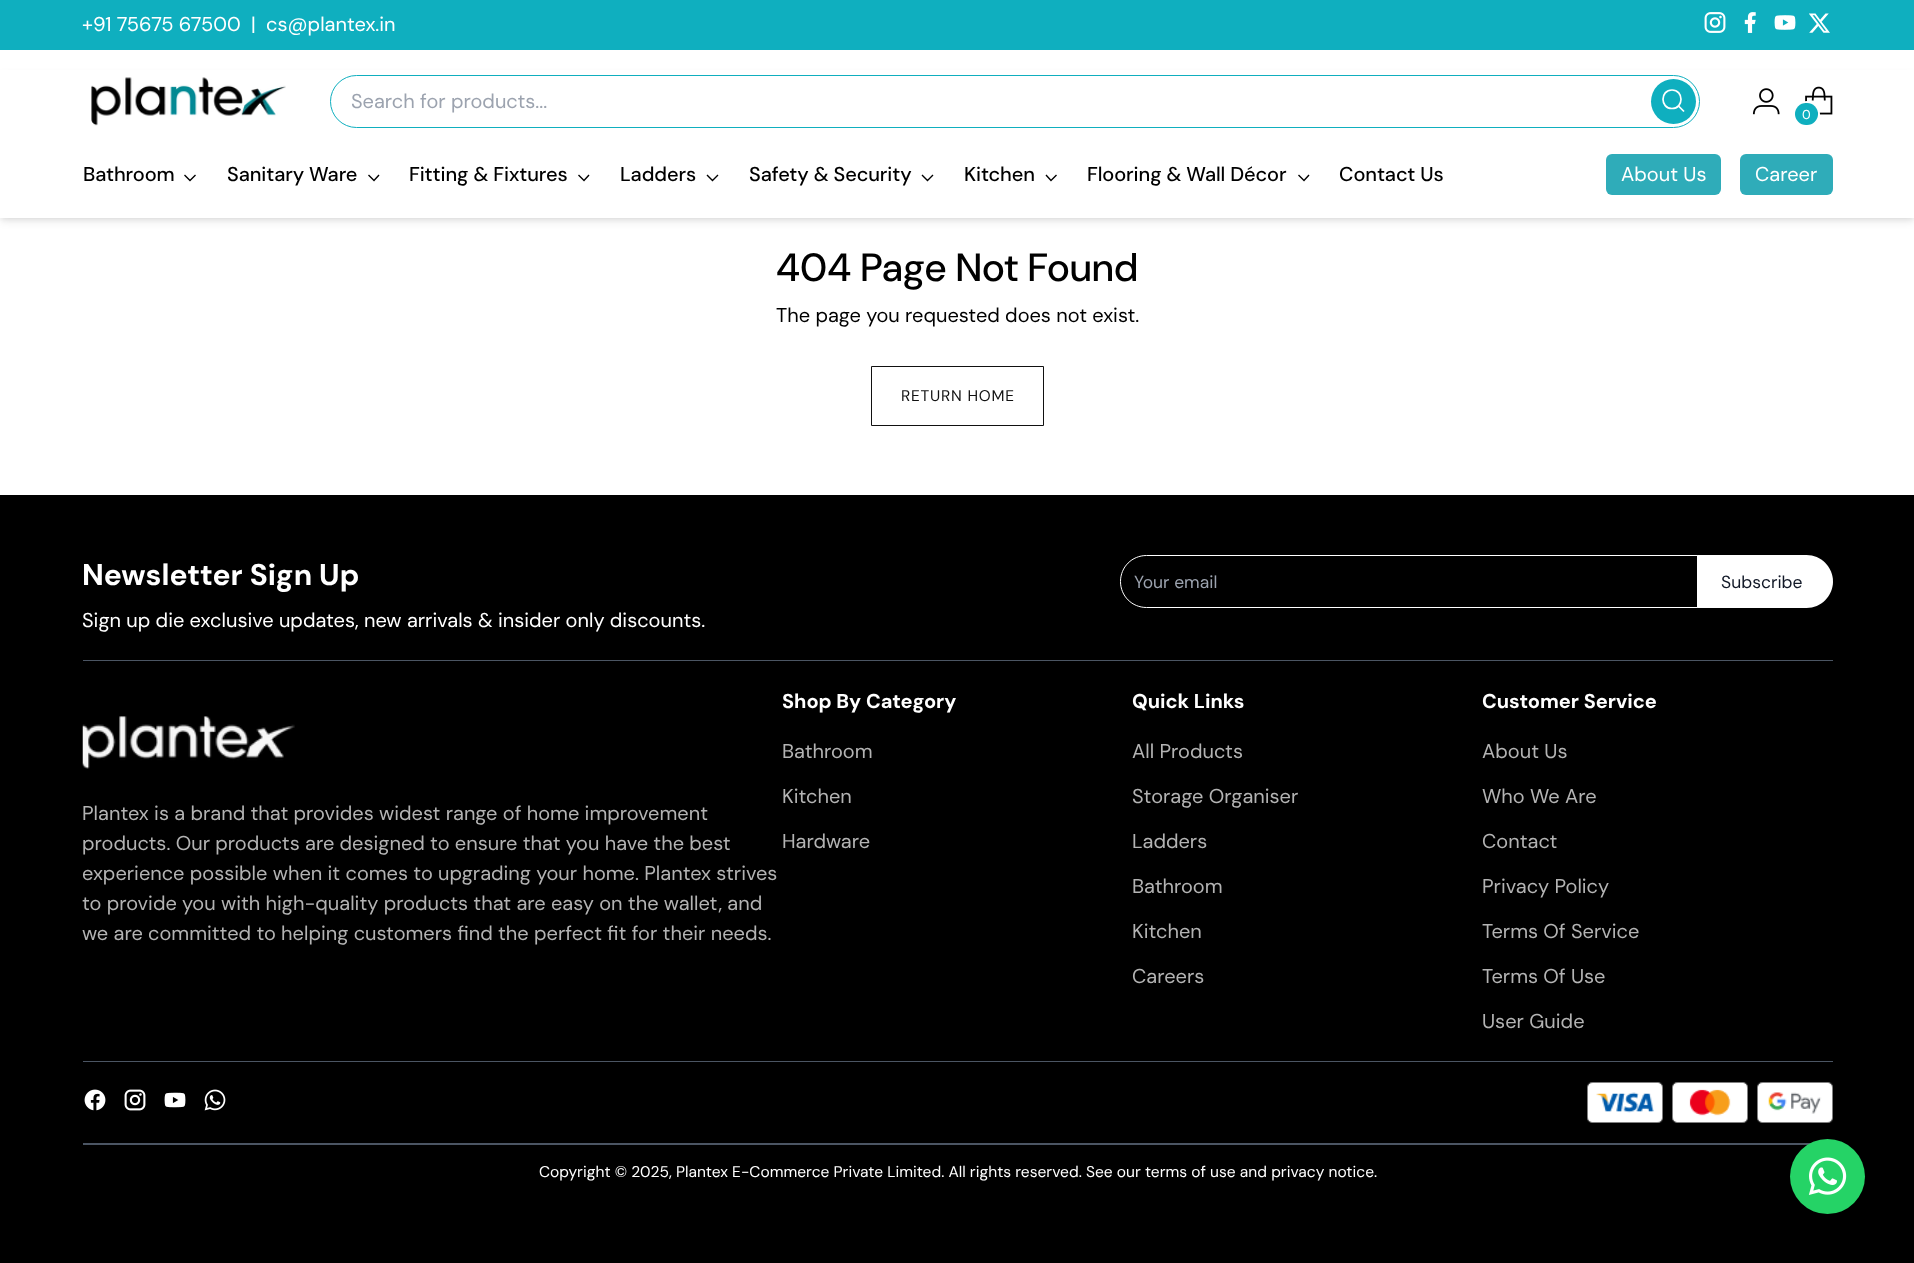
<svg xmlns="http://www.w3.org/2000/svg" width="1914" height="1263">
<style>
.a{font:20px DM Sans;fill:#fff}
.b{font:20px DM Sans;fill:#9ca3af}
.c{font:13px 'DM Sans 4';fill:#fff}
.d{font:500 20px 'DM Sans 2';letter-spacing:-0.1px;fill:#000}
.e{font:500 39.4px DM Sans;fill:#000}
.f{font:20px DM Sans;fill:#000}
.g{font:15.55px 'DM Sans 2';letter-spacing:0.75px;fill:#111}
.h{font:bold 30px DM Sans;fill:#fff}
.i{font:17.5px 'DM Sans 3';fill:#9ca3af}
.j{font:17.5px 'DM Sans 3';fill:#111827}
.k{font:20px DM Sans;fill:#b3b3b3}
.l{font:bold 20px 'DM Sans 2';fill:#fff}
.m{font:15.55px 'DM Sans 2';fill:#fff}
</style>
<rect width="100%" height="100%" fill="#fff"/>
<path fill="#0fafbf" d="M0 0h1914v50H0z"/>
<image href="1.png" x="1704" y="12" width="22" height="21"/>
<image href="2.png" x="1744" y="12" width="12" height="21"/>
<image href="3.png" x="1774" y="15" width="22" height="15"/>
<image href="4.png" x="1809" y="13" width="21" height="20"/>
<path fill="#0000000f" filter="blur(2.5px)" d="M1 74h1913v145H1z"/>
<path fill="#0000001a" filter="blur(4px)" d="M1 76h1913v145H1z"/>
<path fill="#fff" d="M0 70h1914v148H0z"/>
<image href="5.png" x="91" y="77" width="195" height="49"/>
<rect fill="none" stroke="#0fafbf" x="330.5" y="75.5" width="1369" height="52" rx="26"/>
<circle fill="#0fafbf" cx="1673.5" cy="101.5" r="22.5"/>
<path fill="none" stroke="#fff" stroke-width="1.7" stroke-linecap="round" d="M1672 108.5c12 0 12-18.5 0-18.5c-12 0-12 18.5 0 18.5z"/>
<path fill="none" stroke="#fff" stroke-width="1.7" d="M1678.5 106l5.5 5.5"/>
<image href="6.png" x="1752" y="88" width="28" height="27"/>
<image href="7.png" x="1805" y="86" width="28" height="29"/>
<rect fill="none" stroke="#fff" stroke-width="2" x="1795" y="102" width="24" height="25" rx="12"/>
<rect fill="#0fafbf" x="1795" y="103" width="23" height="22" rx="11"/>
<path fill="none" stroke="#000" stroke-width="1.4" d="M184.5 175l5.5 5.5l5.5-5.5"/>
<path fill="none" stroke="#000" stroke-width="1.4" d="M368.5 175l5.5 5.5l5-5.5"/>
<path fill="none" stroke="#000" stroke-width="1.4" d="M578.5 175l5.5 5.5l5-5.5"/>
<path fill="none" stroke="#000" stroke-width="1.4" d="M707 175l5.5 5.5l5.5-5.5"/>
<path fill="none" stroke="#000" stroke-width="1.4" d="M922 175l5.5 5.5l5.5-5.5"/>
<path fill="none" stroke="#000" stroke-width="1.4" d="M1046 175l5 5.5l5.5-5.5"/>
<path fill="none" stroke="#000" stroke-width="1.4" d="M1298.5 175l5.5 5.5l5-5.5"/>
<rect fill="#2facb9" x="1606" y="154" width="115" height="41" rx="6"/>
<rect fill="#2facb9" x="1740" y="154" width="93" height="41" rx="6"/>
<path fill="none" stroke="#111" d="M871.5 366.5h172v59H871.5z"/>
<path fill="#000" d="M0 495h1914v768H0z"/>
<path fill="#4b5563" d="M83 660h1750v1H83z"/>
<path fill="#fff" d="M1691 555h115.5c14.5 0 26.5 12 26.5 26.5c0 14.5-12 26.5-26.5 26.5h-115.5z"/>
<path fill="#000" stroke="#fff" d="M1146.5 555.5h551v52h-551c-14.5 0-26-11.5-26-26c0-14.5 11.5-26 26-26z"/>
<image href="8.png" x="82" y="716" width="213" height="53"/>
<path fill="#4b5563" d="M83 1061h1750v1H83z"/>
<image href="9.png" x="84" y="1089" width="22" height="22"/>
<image href="10.png" x="124" y="1089" width="22" height="22"/>
<image href="11.png" x="164" y="1092" width="22" height="16"/>
<image href="12.png" x="204" y="1089" width="22" height="22"/>
<image href="13.png" x="1587" y="1082" width="76" height="41"/>
<image href="14.png" x="1672" y="1082" width="76" height="41"/>
<image href="15.png" x="1757" y="1082" width="76" height="41"/>
<path fill="#4b5563" d="M83 1143h1728v1H83z"/>
<path fill="#4b5563" d="M83 1144h1726v1H83z"/>
<circle fill="#25d366" cx="1827.5" cy="1176.5" r="37.5"/>
<image href="16.png" x="1808" y="1157" width="39" height="38"/>
<text class="a" x="82" y="31">+91 75675 67500</text>
<text class="a" x="251" y="31">|</text>
<text class="a" x="266" y="31">cs@plantex.in</text>
<text class="b" x="351" y="108">Search for products...</text>
<text class="c" x="1802" y="119">0</text>
<text class="d" x="83" y="181">Bathroom</text>
<text class="d" x="227" y="181">Sanitary Ware</text>
<text class="d" x="409" y="181">Fitting &amp; Fixtures</text>
<text class="d" x="620" y="181">Ladders</text>
<text class="d" x="749" y="181">Safety &amp; Security</text>
<text class="d" x="964" y="181">Kitchen</text>
<text class="d" x="1087" y="181">Flooring &amp; Wall Décor</text>
<text class="d" x="1339" y="181">Contact Us</text>
<text class="a" x="1621" y="181">About Us</text>
<text class="a" x="1755" y="181">Career</text>
<text class="e" x="776" y="281">404 Page Not Found</text>
<text class="f" x="776" y="322">The page you requested does not exist.</text>
<text class="g" x="901" y="401">RETURN HOME</text>
<text class="h" x="82" y="585">Newsletter Sign Up</text>
<text class="a" x="82" y="627">Sign up die exclusive updates, new arrivals &amp; insider only discounts.</text>
<text class="i" x="1134" y="588">Your email</text>
<text class="j" x="1721" y="588">Subscribe</text>
<text class="k" x="82" y="820">Plantex is a brand that provides widest range of home improvement</text>
<text class="k" x="82" y="850">products. Our products are designed to ensure that you have the best</text>
<text class="k" x="82" y="880">experience possible when it comes to upgrading your home. Plantex strives</text>
<text class="k" x="82" y="910">to provide you with high-quality products that are easy on the wallet, and</text>
<text class="k" x="82" y="940">we are committed to helping customers find the perfect fit for their needs.</text>
<text class="l" x="782" y="708">Shop By Category</text>
<text class="k" x="782" y="758">Bathroom</text>
<text class="k" x="782" y="803">Kitchen</text>
<text class="k" x="782" y="848">Hardware</text>
<text class="l" x="1132" y="708">Quick Links</text>
<text class="k" x="1132" y="758">All Products</text>
<text class="k" x="1132" y="803">Storage Organiser</text>
<text class="k" x="1132" y="848">Ladders</text>
<text class="k" x="1132" y="893">Bathroom</text>
<text class="k" x="1132" y="938">Kitchen</text>
<text class="k" x="1132" y="983">Careers</text>
<text class="l" x="1482" y="708">Customer Service</text>
<text class="k" x="1482" y="758">About Us</text>
<text class="k" x="1482" y="803">Who We Are</text>
<text class="k" x="1482" y="848">Contact</text>
<text class="k" x="1482" y="893">Privacy Policy</text>
<text class="k" x="1482" y="938">Terms Of Service</text>
<text class="k" x="1482" y="983">Terms Of Use</text>
<text class="k" x="1482" y="1028">User Guide</text>
<text class="m" x="539" y="1177">Copyright © 2025, Plantex E-Commerce Private Limited. All rights reserved. See our terms of use and privacy notice.</text>
</svg>
